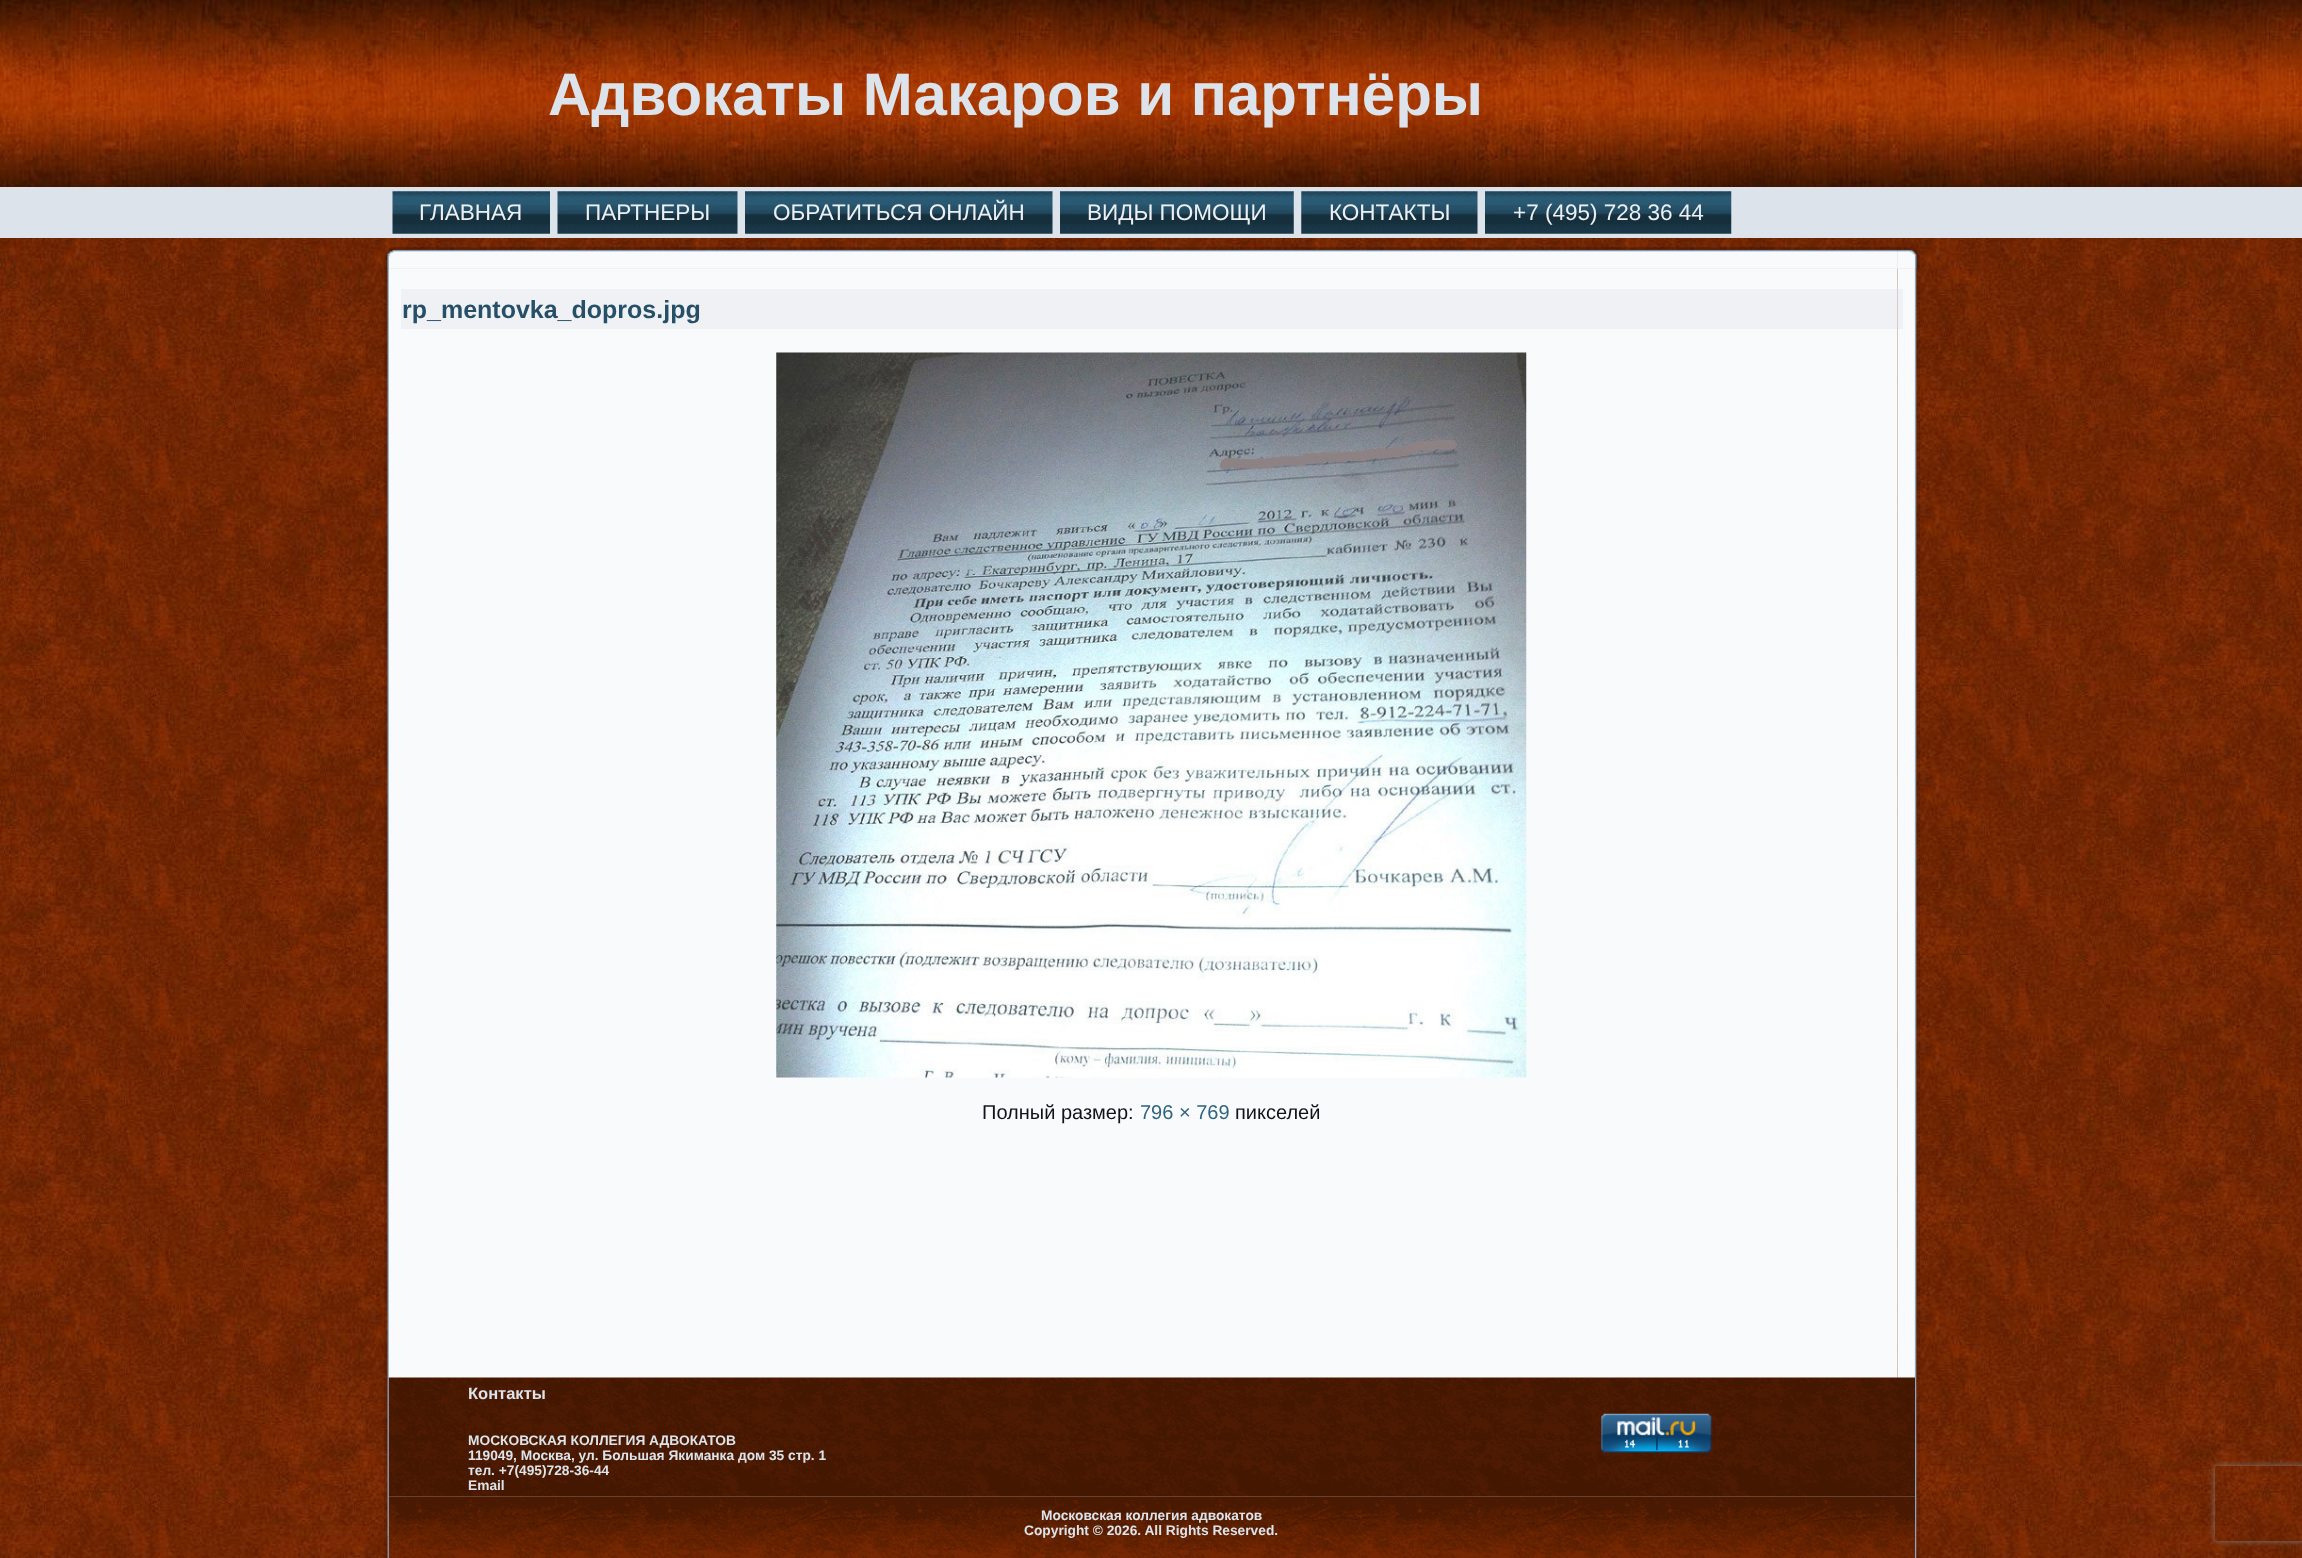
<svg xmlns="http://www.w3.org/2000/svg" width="2302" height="1558">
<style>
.a{font:bold 60px Liberation Sans;fill:#dce3ea}
.b{font:22.5px Liberation Sans;fill:#ecf0f4}
.c{font:bold 25px Liberation Sans;fill:#275068}
.d{font:20px Liberation Sans;fill:#0f1419}
.e{font:20px Liberation Sans;fill:#306482}
.f{font:bold 16.5px Liberation Sans;fill:#dce3ea}
.g{font:bold 13.75px Liberation Sans;fill:#dce3ea}
</style>
<defs>
<clipPath id="clip1"><path d="M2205 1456h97v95h-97zm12.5 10h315c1.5 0 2.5 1 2.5 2.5v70c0 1.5-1 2.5-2.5 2.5h-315c-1.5 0-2.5-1-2.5-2.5v-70c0-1.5 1-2.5 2.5-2.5z" clip-rule="evenodd"/></clipPath>
</defs>
<rect width="100%" height="100%" fill="#fff"/>
<image href="1.png" x="0" y="238" width="2302" height="1320"/>
<image href="2.png" x="0" y="0" width="2302" height="187"/>
<path fill="#dce3ea" d="M0 187h2302v51H0z"/>
<image href="3.png" x="392" y="191" width="158" height="43"/>
<image href="4.png" x="557" y="191" width="181" height="43"/>
<image href="5.png" x="745" y="191" width="308" height="43"/>
<image href="6.png" x="1060" y="191" width="234" height="43"/>
<image href="7.png" x="1301" y="191" width="177" height="43"/>
<image href="8.png" x="1485" y="191" width="247" height="43"/>
<image href="9.png" x="384" y="247" width="1514" height="1311"/>
<image href="10.png" x="384" y="247" width="1514" height="22"/>
<image href="13.png" x="384" y="268" width="1514" height="1269"/>
<image href="14.png" x="1897" y="268" width="23" height="1269"/>
<image href="11.png" x="1897" y="247" width="23" height="1311"/>
<image href="12.png" x="1897" y="247" width="23" height="22"/>
<path fill="#d7dde84d" d="M401 289h1502v40H401z"/>
<image href="15.png" x="776" y="352" width="751" height="726"/>
<image href="18.png" x="388" y="1496" width="1527" height="62"/>
<image href="16.png" x="388" y="1377" width="1527" height="120"/>
<image href="17.png" x="1601" y="1413" width="111" height="40"/>
<g clip-path="url(#clip1)">
<rect fill="#808080" filter="blur(3px)" x="2215" y="1466" width="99" height="75" rx="2.5"/>
</g>
<text class="a" x="548" y="115">Адвокаты Макаров и партнёры</text>
<text class="b" x="419" y="220">ГЛАВНАЯ</text>
<text class="b" x="585" y="220">ПАРТНЕРЫ</text>
<text class="b" x="773" y="220">ОБРАТИТЬСЯ ОНЛАЙН</text>
<text class="b" x="1087" y="220">ВИДЫ ПОМОЩИ</text>
<text class="b" x="1329" y="220">КОНТАКТЫ</text>
<text class="b" x="1513" y="220">+7 (495) 728 36 44</text>
<text class="c" x="402" y="318">rp_mentovka_dopros.jpg</text>
<text class="d" x="982" y="1119">Полный размер:</text>
<text class="e" x="1140" y="1119">796 × 769</text>
<text class="d" x="1235" y="1119">пикселей</text>
<text class="f" x="468" y="1399">Контакты</text>
<text class="g" x="468" y="1445">МОСКОВСКАЯ КОЛЛЕГИЯ АДВОКАТОВ</text>
<text class="g" x="468" y="1460">119049, Москва, ул. Большая Якиманка дом 35 стр. 1</text>
<text class="g" x="468" y="1475">тел. +7(495)728-36-44</text>
<text class="g" x="468" y="1490">Email</text>
<text class="g" x="1041" y="1520">Московская коллегия адвокатов</text>
<text class="g" x="1024" y="1535">Copyright © 2026. All Rights Reserved.</text>
</svg>
